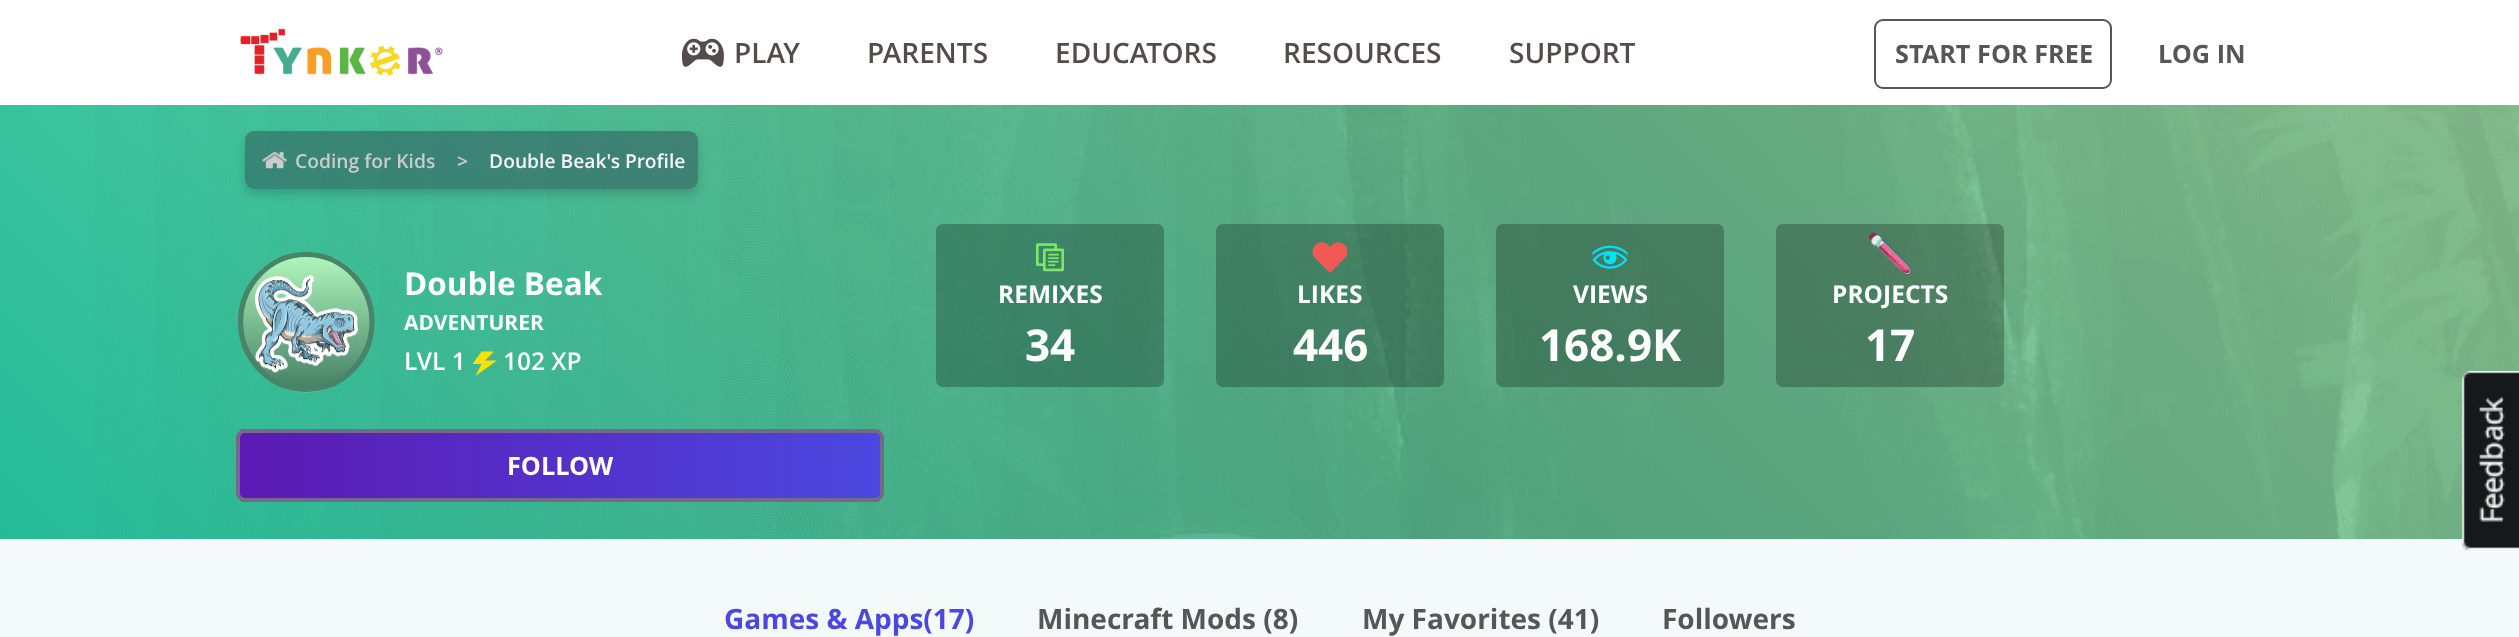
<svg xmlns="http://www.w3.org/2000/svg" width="2519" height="637">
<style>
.a{font:600 28px Open Sans;fill:#544c4b}
.b{font:bold 25.25px Open Sans;fill:#565656}
.c{font:600 19.25px Open Sans;fill:#ccc}
.d{font:600 19.25px Open Sans;fill:#f8f8f8}
.e{font:bold 31.5px Open Sans;fill:#fefefe}
.f{font:bold 21px Open Sans;fill:#fefefe}
.g{font:600 24.5px Open Sans;fill:#fefefe}
.h{font:bold 25.25px Open Sans;fill:#fefefe}
.i{font:bold 24.5px Open Sans;fill:#fefefe}
.j{font:bold 44px Open Sans;fill:#fefefe}
.k{font:bold 28px Open Sans;fill:#4b47e0}
.l{font:bold 28px Open Sans;fill:#565656}
</style>
<defs>
<clipPath id="clip1"><path d="M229 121h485v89h-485zm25 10h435c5 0 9 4 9 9v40c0 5-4 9-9 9h-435c-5 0-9-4-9-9v-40c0-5 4-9 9-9z" clip-rule="evenodd"/></clipPath>
<linearGradient id="g1" gradientUnits="userSpaceOnUse" x1="306" y1="257" x2="306" y2="387"><stop offset="0" stop-color="#aff5ba"/><stop offset="0.99" stop-color="#478468"/></linearGradient>
<linearGradient id="g2" gradientUnits="userSpaceOnUse" x1="306" y1="387" x2="306" y2="516"><stop offset="0" stop-color="#aff5ba"/><stop offset="0.99" stop-color="#478468"/></linearGradient>
<clipPath id="clip2"><rect x="236" y="429" width="648" height="73" rx="9"/></clipPath>
<linearGradient id="g3" gradientUnits="userSpaceOnUse" x1="240" y1="466" x2="880" y2="466"><stop offset="0" stop-color="#5b1ab3"/><stop offset="1" stop-color="#4b47e0"/></linearGradient>
</defs>
<rect width="100%" height="100%" fill="#f4f9fa"/>
<path fill="#fff" d="M0 0h2519v105H0z"/>
<image href="1.png" x="240" y="28" width="203" height="48"/>
<image href="2.png" x="681" y="38" width="43" height="29"/>
<rect fill="none" stroke="#565656" stroke-width="2" x="1875" y="20" width="236" height="68" rx="8"/>
<image href="3.png" x="0" y="105" width="2519" height="434"/>
<g clip-path="url(#clip1)">
<rect fill="#00000029" filter="blur(5px)" x="245" y="137" width="453" height="57" rx="9"/>
</g>
<rect fill="#2e334766" x="245" y="131" width="453" height="58" rx="9"/>
<image href="4.png" x="262" y="151" width="26" height="18"/>
<path fill="url(#g1)" d="M281 387c-25-10-43-36-43-65c0-29 18-55 43-65h51c25 10 42 36 42 65c0 29-17 55-42 65z"/>
<path fill="url(#g2)" d="M332 387c-17 7-35 7-51 0z"/>
<path fill="none" stroke="#478468" stroke-width="5.2" d="M306 254.5c36.5 0 66 30.5 66 67.5c0 37-29.5 67.5-66 67.5c-36 0-65.5-30.5-65.5-67.5c0-37 29.5-67.5 65.5-67.5z"/>
<image href="5.png" x="254" y="275" width="104" height="98"/>
<path fill="#ffe000" d="M481.5 351.5l-9 12.5h9l-6 12l21.5-15.5h-12l9-9z"/>
<g clip-path="url(#clip2)">
<path fill="url(#g3)" d="M240 429h640v73H240z"/>
</g>
<rect fill="none" stroke="#766889" stroke-width="4" x="238" y="431" width="644" height="69" rx="7"/>
<rect fill="#00000040" x="936" y="224" width="228" height="163" rx="7"/>
<image href="6.png" x="1036" y="243" width="28" height="29"/>
<rect fill="#00000040" x="1216" y="224" width="228" height="163" rx="7"/>
<image href="7.png" x="1312" y="242" width="36" height="31"/>
<rect fill="#00000040" x="1496" y="224" width="228" height="163" rx="7"/>
<image href="8.png" x="1592" y="245" width="36" height="24"/>
<rect fill="#00000040" x="1776" y="224" width="228" height="163" rx="7"/>
<image href="9.png" x="1869" y="232" width="43" height="43"/>
<image href="10.png" x="2461" y="371" width="58" height="179"/>
<text class="a" x="734" y="63">PLAY</text>
<text class="a" x="867" y="63">PARENTS</text>
<text class="a" x="1055" y="63">EDUCATORS</text>
<text class="a" x="1283" y="63">RESOURCES</text>
<text class="a" x="1509" y="63">SUPPORT</text>
<text class="b" x="1895" y="63">START FOR FREE</text>
<text class="b" x="2158" y="63">LOG IN</text>
<text class="c" x="295" y="168">Coding for Kids</text>
<text class="c" x="457" y="168">&gt;</text>
<text class="d" x="489" y="168">Double Beak's Profile</text>
<text class="e" x="404" y="295">Double Beak</text>
<text class="f" x="404" y="330">ADVENTURER</text>
<text class="g" x="404" y="370">LVL 1</text>
<text class="g" x="503" y="370">102 XP</text>
<text class="h" x="507" y="475">FOLLOW</text>
<text class="i" x="998" y="303">REMIXES</text>
<text class="j" x="1025" y="361">34</text>
<text class="i" x="1297" y="303">LIKES</text>
<text class="j" x="1293" y="361">446</text>
<text class="i" x="1573" y="303">VIEWS</text>
<text class="j" x="1539" y="361">168.9K</text>
<text class="i" x="1832" y="303">PROJECTS</text>
<text class="j" x="1865" y="361">17</text>
<text class="k" x="724" y="629">Games &amp; Apps(17)</text>
<text class="l" x="1037" y="629">Minecraft Mods (8)</text>
<text class="l" x="1362" y="629">My Favorites (41)</text>
<text class="l" x="1662" y="629">Followers</text>
</svg>
